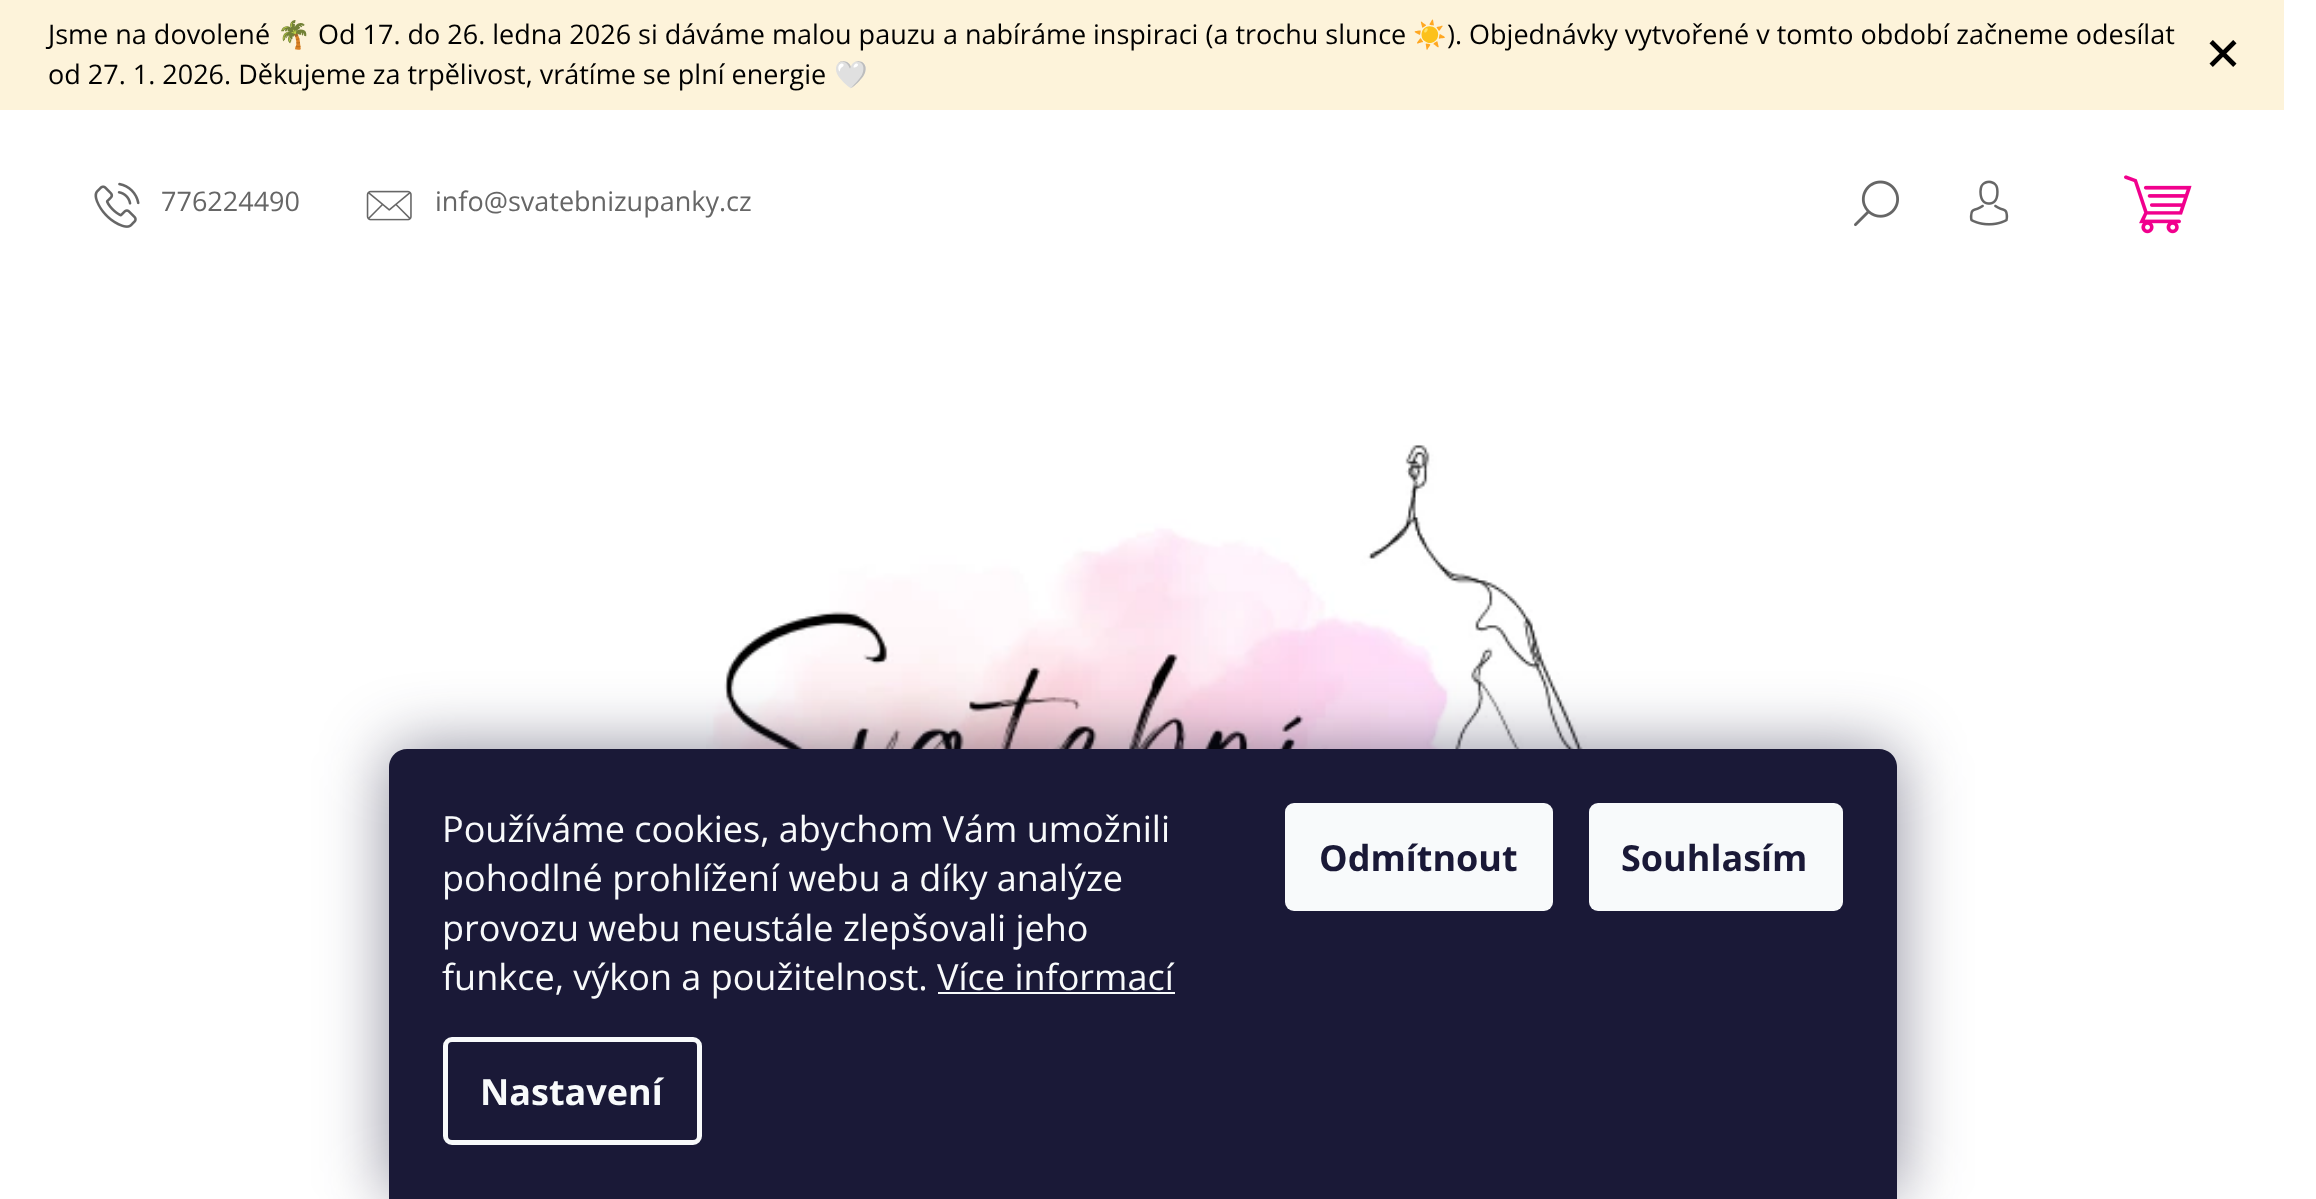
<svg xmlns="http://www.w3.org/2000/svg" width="2316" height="1199">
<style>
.a{font:27px Open Sans;fill:#000}
.b{font:27px Noto Color Emoji;fill:#000}
.c{font:27px Open Sans;fill:#666}
.d{font:36px Open Sans;fill:#f8fafb}
.e{font:bold 36px Open Sans;fill:#f8fafb}
.f{font:bold 36px Open Sans;fill:#1a1937}
</style>
<rect width="100%" height="100%" fill="#fff"/>
<path fill="#fdf3da" d="M0 0h2284v110H0z"/>
<image href="1.png" x="2209" y="40" width="28" height="27"/>
<image href="2.png" x="94" y="182" width="46" height="46"/>
<image href="3.png" x="366" y="190" width="46" height="31"/>
<image href="4.png" x="1854" y="180" width="45" height="47"/>
<image href="5.png" x="1969" y="180" width="40" height="46"/>
<image href="6.png" x="2124" y="175" width="68" height="59"/>
<image href="7.png" x="706" y="445" width="898" height="304"/>
<rect fill="#1b193980" filter="blur(34px)" x="389" y="749" width="1508" height="450" rx="18"/>
<path fill="#1a1937" d="M407 749h1472c10 0 18 8 18 18v432h-1508v-432c0-10 8-18 18-18z"/>
<path fill="#f8fafb" d="M938 992h237v2H938z"/>
<rect fill="none" stroke="#f8fafb" stroke-width="5" x="445.5" y="1039.5" width="254" height="103" rx="6.5"/>
<rect fill="#f8fafb" x="1285" y="803" width="268" height="108" rx="9"/>
<rect fill="#f8fafb" x="1589" y="803" width="254" height="108" rx="9"/>
<text class="a" x="48" y="44">Jsme na dovolené</text>
<text class="b" x="277" y="44">🌴</text>
<text class="a" x="318" y="44">Od 17. do 26. ledna 2026 si dáváme malou pauzu a nabíráme inspiraci (a trochu slunce</text>
<text class="b" x="1413" y="44">☀️</text>
<text class="a" x="1447" y="44">). Objednávky vytvořené v tomto období začneme odesílat</text>
<text class="a" x="48" y="84">od 27. 1. 2026. Děkujeme za trpělivost, vrátíme se plní energie</text>
<text class="b" x="834" y="84">🤍</text>
<text class="c" x="161" y="211">776224490</text>
<text class="c" x="435" y="211">info@svatebnizupanky.cz</text>
<text class="d" x="442" y="842">Používáme cookies, abychom Vám umožnili</text>
<text class="d" x="442" y="891">pohodlné prohlížení webu a díky analýze</text>
<text class="d" x="442" y="941">provozu webu neustále zlepšovali jeho</text>
<text class="d" x="442" y="990">funkce, výkon a použitelnost. Více informací</text>
<text class="e" x="480" y="1105">Nastavení</text>
<text class="f" x="1319" y="871">Odmítnout</text>
<text class="f" x="1621" y="871">Souhlasím</text>
</svg>
